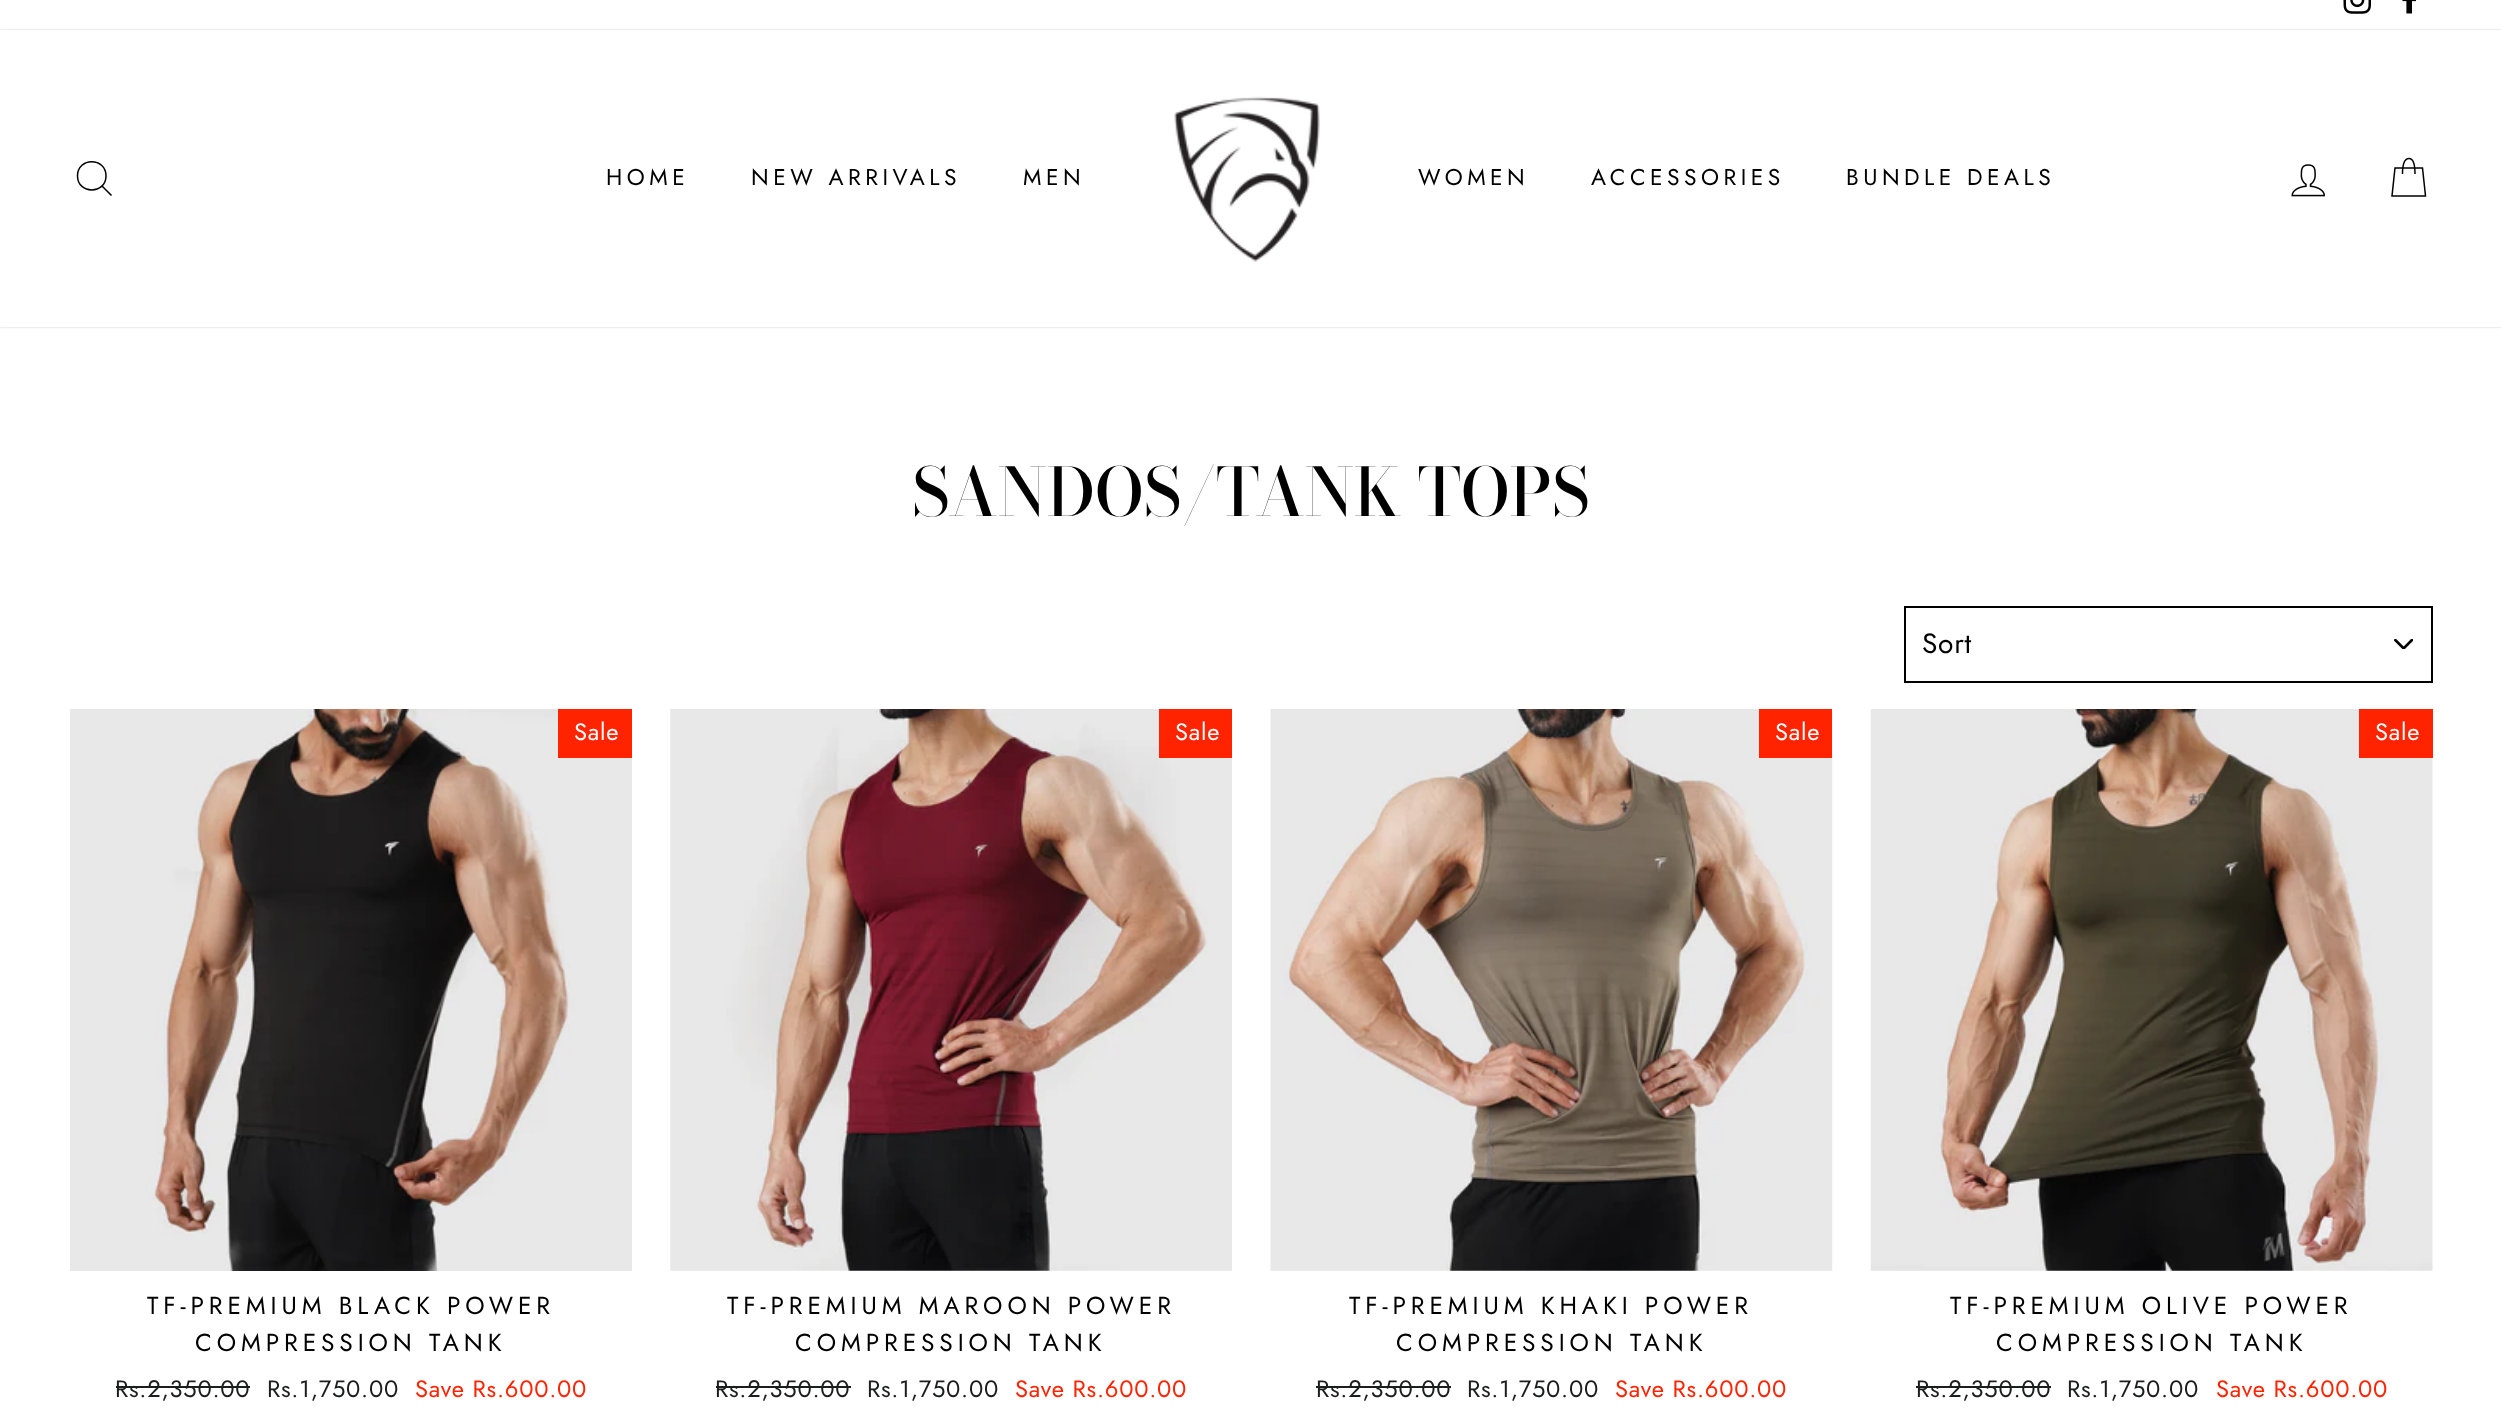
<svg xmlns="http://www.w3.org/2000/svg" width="2501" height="1420">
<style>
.a{font:22.75px Jost;letter-spacing:4.5px;fill:#000}
.b{font:500 66.5px Bodoni Moda;fill:#000}
.c{font:28px Jost;letter-spacing:0.75px;fill:#000}
.d{font:23.75px Jost;letter-spacing:0.75px;fill:#fff}
.e{font:24.5px Jost;letter-spacing:4.9px;fill:#000}
.f{font:23.75px Jost;letter-spacing:0.75px;fill:#1c1d1d}
.g{font:23.75px Jost;letter-spacing:0.75px;fill:#ff2300}
</style>
<defs>
<clipPath id="clip1"><path d="M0 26h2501v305h-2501zm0 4h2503v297h-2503z" clip-rule="evenodd"/></clipPath>
</defs>
<rect width="100%" height="100%" fill="#fff"/>
<image href="1.png" x="2343" y="0" width="28" height="14"/>
<image href="2.png" x="2402" y="0" width="14" height="14"/>
<g clip-path="url(#clip1)">
<path fill="#00000033" filter="blur(1px)" d="M0 30h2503v297H0z"/>
</g>
<path fill="none" stroke="#000" stroke-width="1.5" d="M106 176c0 18.5-28.5 18.5-28.5 0c0-19 28.5-19 28.5 0zm5.5 19.5l-9.5-9.5"/>
<image href="3.png" x="1174" y="96" width="146" height="166"/>
<image href="4.png" x="2291" y="164" width="34" height="33"/>
<path fill="none" stroke="#000" stroke-width="1.5" d="M2402.5 174c0-12 3-15.5 6.5-15.5c3 0 6 3.5 6 15.5m-20-6h27.5l3 28h-33.5z"/>
<image href="5.png" x="2394" y="639" width="19" height="10"/>
<path fill="none" stroke="#000" stroke-width="2" d="M1905 607h527v75H1905z"/>
<image href="6.png" x="70" y="709" width="562" height="562"/>
<path fill="#ff2300" d="M558 709h74v49H558z"/>
<path fill="#1c1d1d" d="M116 1386h134v2H116z"/>
<image href="7.png" x="670" y="709" width="562" height="562"/>
<path fill="#ff2300" d="M1159 709h73v49H1159z"/>
<path fill="#1c1d1d" d="M716 1386h135v2H716z"/>
<image href="8.png" x="1270" y="709" width="563" height="562"/>
<path fill="#ff2300" d="M1759 709h73v49H1759z"/>
<path fill="#1c1d1d" d="M1316 1386h135v2H1316z"/>
<image href="9.png" x="1870" y="709" width="563" height="562"/>
<path fill="#ff2300" d="M2359 709h74v49H2359z"/>
<path fill="#1c1d1d" d="M1916 1386h135v2H1916z"/>
<text class="a" x="606" y="185">HOME</text>
<text class="a" x="751" y="185">NEW ARRIVALS</text>
<text class="a" x="1023" y="185">MEN</text>
<text class="a" x="1418" y="185">WOMEN</text>
<text class="a" x="1591" y="185">ACCESSORIES</text>
<text class="a" x="1846" y="185">BUNDLE DEALS</text>
<text class="b" x="912" y="516">SANDOS/TANK TOPS</text>
<text class="c" x="1922" y="653">Sort</text>
<text class="d" x="574" y="740">Sale</text>
<text class="e" x="147" y="1314">TF-PREMIUM BLACK POWER</text>
<text class="e" x="195" y="1351">COMPRESSION TANK</text>
<text class="f" x="115" y="1397">Rs.2,350.00</text>
<text class="f" x="267" y="1397">Rs.1,750.00</text>
<text class="g" x="415" y="1397">Save Rs.600.00</text>
<text class="d" x="1175" y="740">Sale</text>
<text class="e" x="727" y="1314">TF-PREMIUM MAROON POWER</text>
<text class="e" x="795" y="1351">COMPRESSION TANK</text>
<text class="f" x="715" y="1397">Rs.2,350.00</text>
<text class="f" x="867" y="1397">Rs.1,750.00</text>
<text class="g" x="1015" y="1397">Save Rs.600.00</text>
<text class="d" x="1775" y="740">Sale</text>
<text class="e" x="1349" y="1314">TF-PREMIUM KHAKI POWER</text>
<text class="e" x="1396" y="1351">COMPRESSION TANK</text>
<text class="f" x="1316" y="1397">Rs.2,350.00</text>
<text class="f" x="1467" y="1397">Rs.1,750.00</text>
<text class="g" x="1615" y="1397">Save Rs.600.00</text>
<text class="d" x="2375" y="740">Sale</text>
<text class="e" x="1950" y="1314">TF-PREMIUM OLIVE POWER</text>
<text class="e" x="1996" y="1351">COMPRESSION TANK</text>
<text class="f" x="1916" y="1397">Rs.2,350.00</text>
<text class="f" x="2067" y="1397">Rs.1,750.00</text>
<text class="g" x="2216" y="1397">Save Rs.600.00</text>
</svg>
